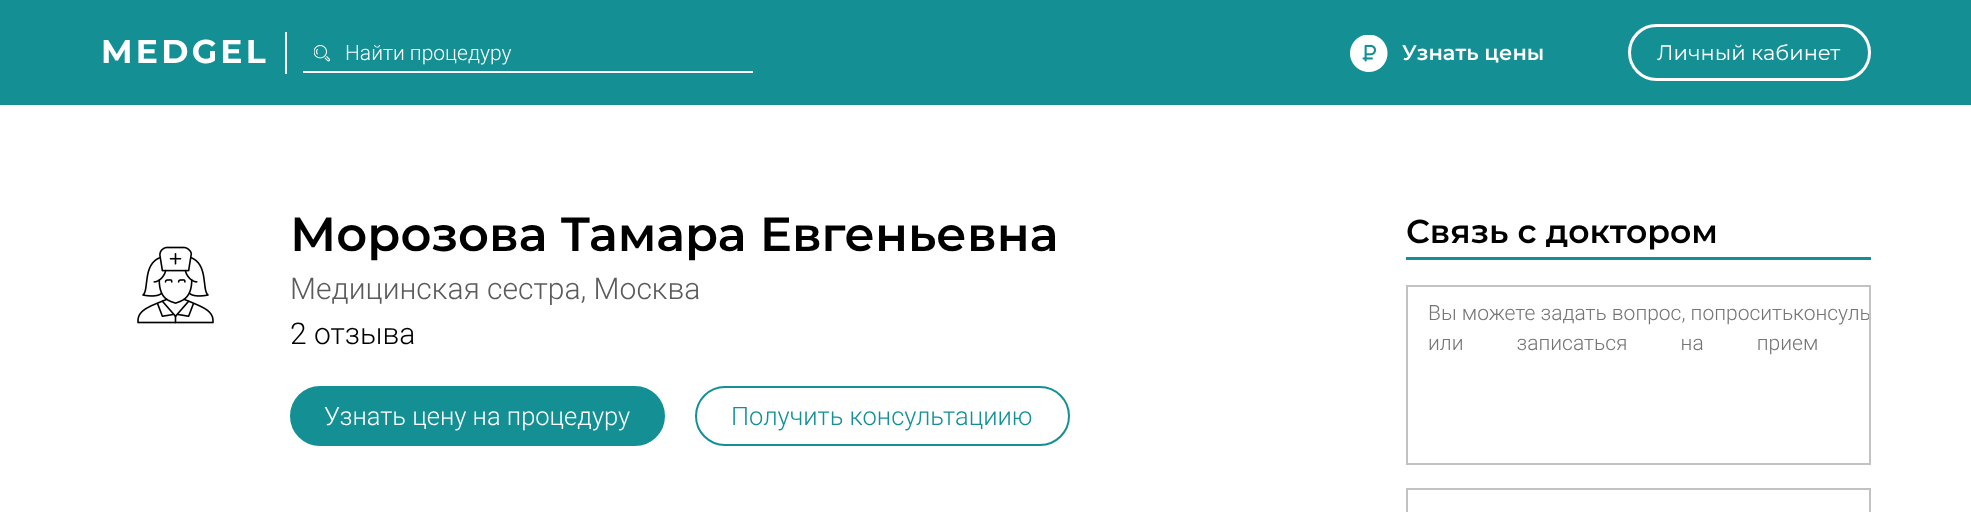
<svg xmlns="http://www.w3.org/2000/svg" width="1971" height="512">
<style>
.a{font:bold 33px Montserrat;letter-spacing:3.25px;fill:#fff}
.b{font:300 21px Roboto;fill:#fff}
.c{font:600 21px Montserrat;fill:#fff}
.d{font:21px Montserrat;fill:#fff}
.e{font:600 48px Montserrat;fill:#000}
.f{font:300 30px Roboto;fill:#5b5b5b}
.g{font:300 30px Roboto;fill:#000}
.h{font:300 25.5px Roboto;fill:#fff}
.i{font:300 25.5px Roboto;fill:#149095}
.j{font:600 33px Montserrat;fill:#000}
.k{font:300 21px Roboto;fill:#757575}
</style>
<defs>
<clipPath id="clip1"><path d="M1407 287h462v177H1407z"/></clipPath>
</defs>
<rect width="100%" height="100%" fill="#fff"/>
<path fill="#149095" d="M0 0h1971v105H0z"/>
<path fill="#fff" d="M285 32h2v42H285z"/>
<image href="1.png" x="314" y="45" width="16" height="17"/>
<path fill="#fff" d="M303 71h450v2H303z"/>
<image href="2.png" x="1350" y="35" width="38" height="37"/>
<rect fill="none" stroke="#fff" stroke-width="3" x="1629.5" y="25.5" width="240" height="54" rx="27"/>
<image href="3.png" x="137" y="246" width="77" height="78"/>
<rect fill="#149095" stroke="#149095" stroke-width="2" x="291" y="387" width="373" height="58" rx="29"/>
<rect fill="none" stroke="#149095" stroke-width="2" x="696" y="387" width="373" height="58" rx="29"/>
<path fill="#149095" d="M1406 257h465v3H1406z"/>
<path fill="none" stroke="#c2c2c2" stroke-width="2" d="M1407 286h463v178H1407z"/>
<path fill="none" stroke="#c2c2c2" stroke-width="2" d="M1407 489h463v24H1407z"/>
<text class="a" x="101" y="63">MEDGEL</text>
<text class="b" x="345" y="60">Найти процедуру</text>
<text class="c" x="1402" y="60">Узнать цены</text>
<text class="d" x="1657" y="60">Личный кабинет</text>
<text class="e" x="290" y="251">Морозова Тамара Евгеньевна</text>
<text class="f" x="290" y="299">Медицинская сестра, Москва</text>
<text class="g" x="290" y="344">2 отзыва</text>
<text class="h" x="324" y="425">Узнать цену на процедуру</text>
<text class="i" x="731" y="425">Получить консультациию</text>
<text class="j" x="1406" y="243">Связь с доктором</text>
<text class="k" x="1428" y="320">Вы можете задать вопрос, попросить</text>
<g clip-path="url(#clip1)">
<text class="k" x="1793" y="320">консуль</text>
</g>
<text class="k" x="1428" y="350" word-spacing="48">или записаться на прием</text>
</svg>
